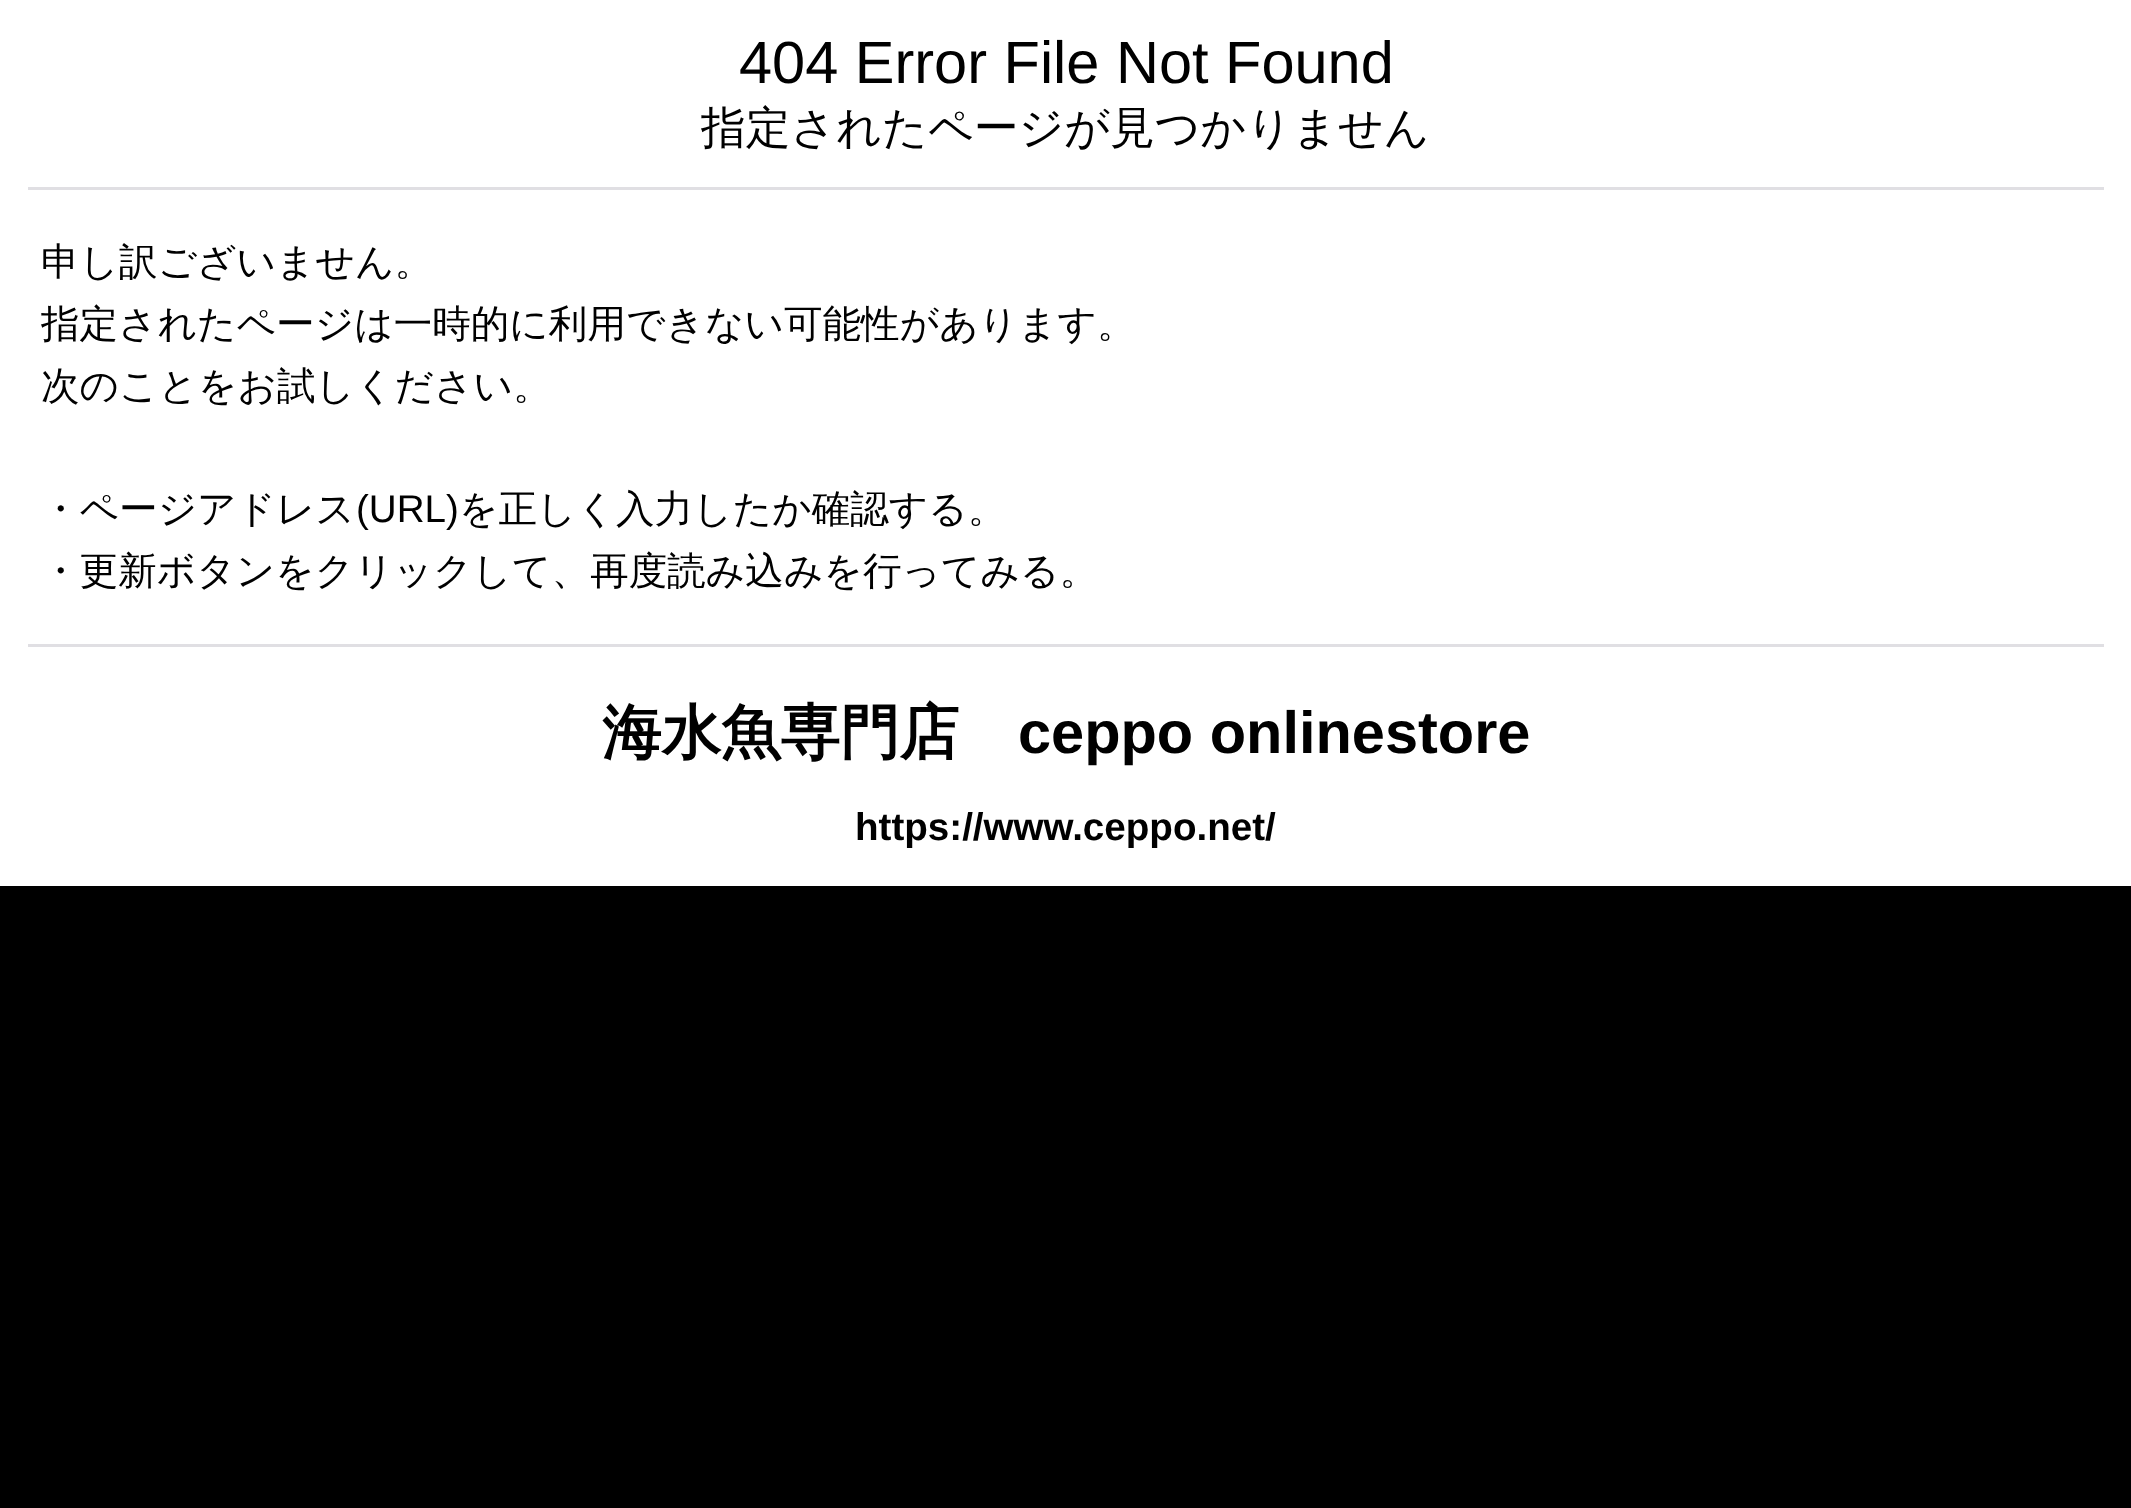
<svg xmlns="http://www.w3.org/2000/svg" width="2131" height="1508">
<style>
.a{font:59.5px Liberation Sans;fill:#000}
.b{font:500 44.75px WenQuanYi Zen Hei;fill:#000}
.c{font:500 38.6px WenQuanYi Zen Hei;fill:#000}
.d{font:38.6px Liberation Sans;fill:#000}
.e{font:bold 59.5px WenQuanYi Zen Hei;fill:#000}
.f{font:bold 59.5px Liberation Sans;fill:#000}
.g{font:bold 38.6px Liberation Sans;fill:#000}
</style>
<rect width="100%" height="100%" fill="#000"/>
<path fill="#fff" d="M0 0h2131v886H0z"/>
<path fill="#e0dfe3" d="M28 187h2076v3H28z"/>
<path fill="#e0dfe3" d="M28 644h2076v3H28z"/>
<text class="a" x="739" y="83">404 Error File Not Found</text>
<text class="b" x="701" y="143">指定されたページが見つかりません</text>
<text class="c" x="41" y="275">申し訳ございません。</text>
<text class="c" x="41" y="337">指定されたページは一時的に利用できない可能性があります。</text>
<text class="c" x="41" y="399">次のことをお試しください。</text>
<text class="c" x="41" y="522">・ページアドレス</text>
<text class="d" x="356" y="522">(URL)</text>
<text class="c" x="459" y="522">を正しく入力したか確認する。</text>
<text class="c" x="41" y="584">・更新ボタンをクリックして、再度読み込みを行ってみる。</text>
<text class="e" x="602" y="753">海水魚専門店</text>
<text class="f" x="1018" y="753">ceppo onlinestore</text>
<text class="g" x="855" y="840">https://www.ceppo.net/</text>
</svg>
